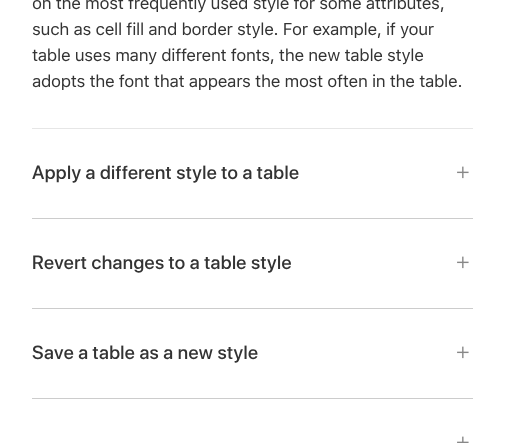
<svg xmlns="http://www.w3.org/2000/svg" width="505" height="443">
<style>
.a{font:17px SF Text;letter-spacing:-0.35px;fill:#333}
.b{font:500 19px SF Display;letter-spacing:0.35px;fill:#333}
</style>
<rect width="100%" height="100%" fill="#fff"/>
<path fill="#e6e6e6" d="M32 128h441v1H32z"/>
<image href="1.png" x="457" y="166" width="12" height="13"/>
<path fill="#ccc" d="M32 218h441v1H32z"/>
<image href="1.png" x="457" y="256" width="12" height="13"/>
<path fill="#ccc" d="M32 308h441v1H32z"/>
<image href="1.png" x="457" y="346" width="12" height="13"/>
<path fill="#ccc" d="M32 398h441v1H32z"/>
<image href="2.png" x="457" y="436" width="12" height="7"/>
<text class="a" x="32" y="9">on the most frequently used style for some attributes,</text>
<text class="a" x="32" y="35">such as cell fill and border style. For example, if your</text>
<text class="a" x="32" y="61">table uses many different fonts, the new table style</text>
<text class="a" x="32" y="87">adopts the font that appears the most often in the table.</text>
<text class="b" x="32" y="179">Apply a different style to a table</text>
<text class="b" x="32" y="269">Revert changes to a table style</text>
<text class="b" x="32" y="359">Save a table as a new style</text>
</svg>
